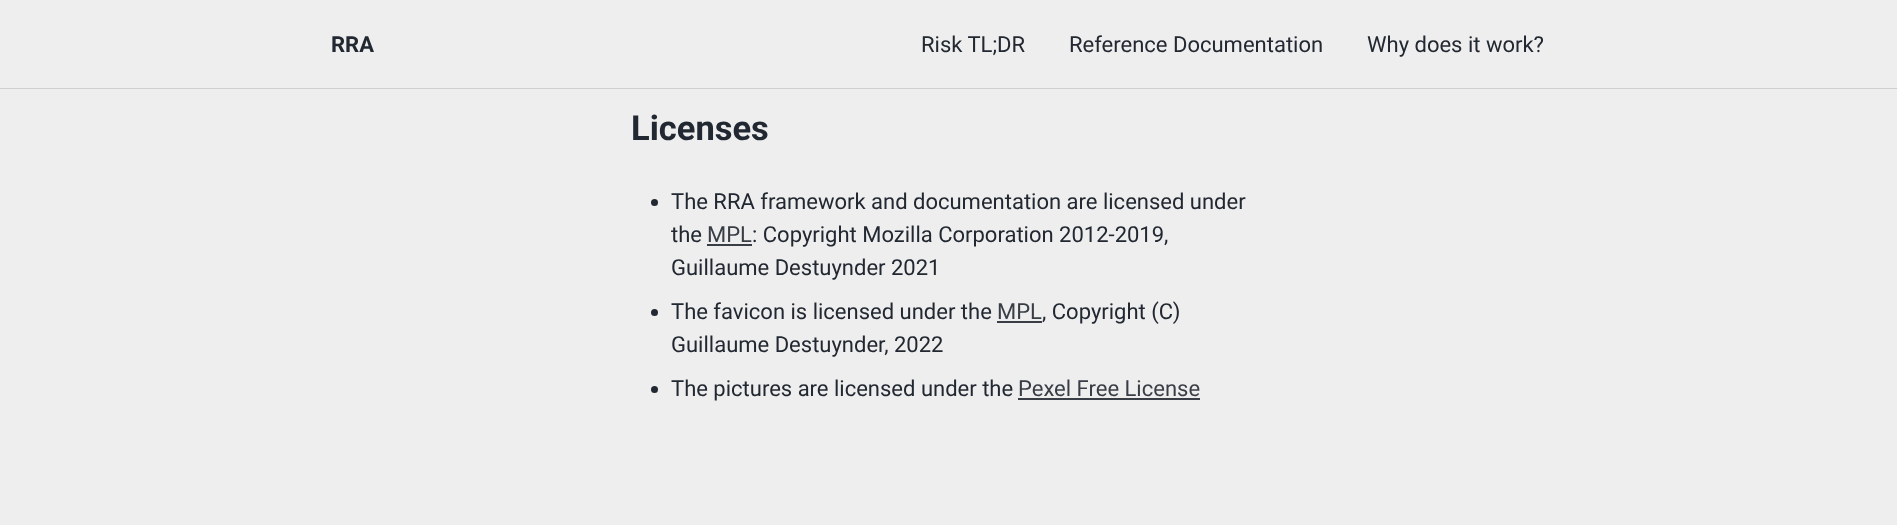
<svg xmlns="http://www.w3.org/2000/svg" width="1897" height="525">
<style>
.a{font:bold 22px Roboto;fill:#222831}
.b{font:22px Roboto;fill:#222831}
.c{font:bold 34.5px Roboto;fill:#222831}
.d{font:22px Roboto;fill:#393e46}
</style>
<rect width="100%" height="100%" fill="#eee"/>
<path fill="#cecfd1" d="M0 88h1897v1H0z"/>
<circle fill="#222831" cx="654.5" cy="202.5" r="3.5"/>
<path fill="#393e46" d="M707 244h45v2H707z"/>
<circle fill="#222831" cx="654.5" cy="312.5" r="3.5"/>
<path fill="#393e46" d="M997 321h45v2H997z"/>
<circle fill="#222831" cx="654.5" cy="389.5" r="3.5"/>
<path fill="#393e46" d="M1018 398h182v2H1018z"/>
<text class="a" x="331" y="52">RRA</text>
<text class="b" x="921" y="52">Risk TL;DR</text>
<text class="b" x="1069" y="52">Reference Documentation</text>
<text class="b" x="1367" y="52">Why does it work?</text>
<text class="c" x="631" y="140">Licenses</text>
<text class="b" x="671" y="209">The RRA framework and documentation are licensed under</text>
<text class="b" x="671" y="242">the</text>
<text class="d" x="707" y="242">MPL</text>
<text class="b" x="752" y="242">: Copyright Mozilla Corporation 2012-2019,</text>
<text class="b" x="671" y="275">Guillaume Destuynder 2021</text>
<text class="b" x="671" y="319">The favicon is licensed under the</text>
<text class="d" x="997" y="319">MPL</text>
<text class="b" x="1042" y="319">, Copyright (C)</text>
<text class="b" x="671" y="352">Guillaume Destuynder, 2022</text>
<text class="b" x="671" y="396">The pictures are licensed under the</text>
<text class="d" x="1018" y="396">Pexel Free License</text>
</svg>
